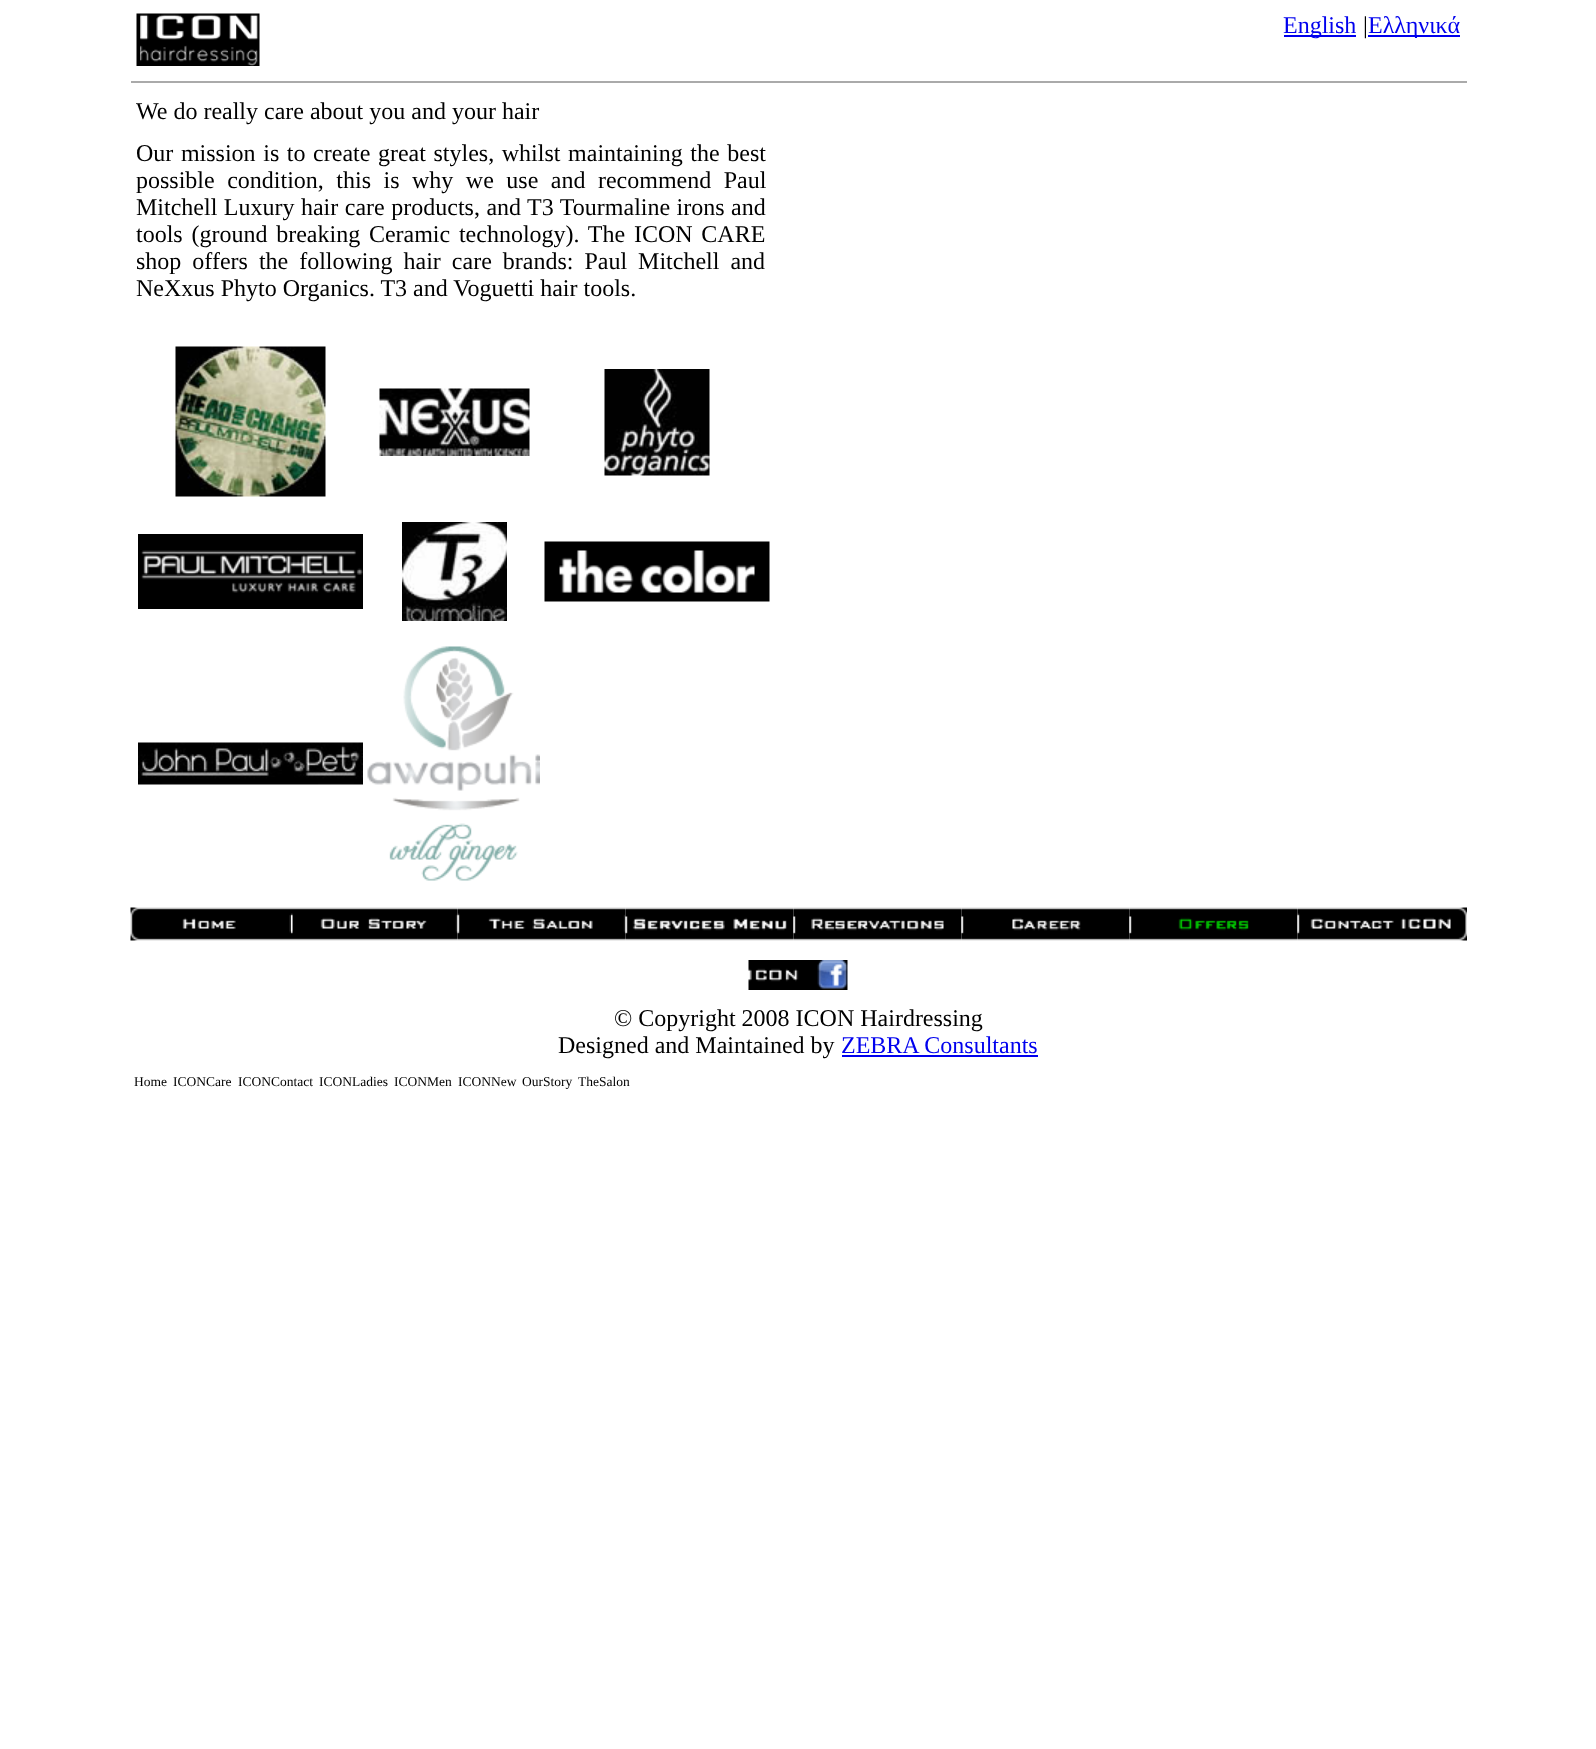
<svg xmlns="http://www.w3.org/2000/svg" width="1596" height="1749">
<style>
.a{font:24px Liberation Serif;fill:#00e}
.b{font:24px Liberation Serif;fill:#000}
.c{font:13.5px Liberation Serif;fill:#000}
</style>
<rect width="100%" height="100%" fill="#fff"/>
<path fill="#aaa" d="M131 81h1336v2H131z"/>
<image href="1.png" x="136" y="13" width="124" height="53"/>
<path fill="#00e" d="M1284 35h72v2H1284z"/>
<path fill="#00e" d="M1368 35h92v2H1368z"/>
<image href="2.png" x="175" y="346" width="151" height="151"/>
<image href="3.png" x="379" y="388" width="151" height="68"/>
<image href="4.png" x="604" y="369" width="106" height="107"/>
<image href="5.png" x="138" y="534" width="225" height="75"/>
<image href="6.png" x="402" y="522" width="105" height="99"/>
<image href="7.png" x="544" y="541" width="226" height="61"/>
<image href="8.png" x="138" y="742" width="225" height="43"/>
<image href="9.png" x="367" y="646" width="173" height="235"/>
<image href="10.png" x="130" y="907" width="161" height="34"/>
<image href="11.png" x="291" y="907" width="167" height="34"/>
<image href="12.png" x="457" y="907" width="169" height="34"/>
<image href="13.png" x="625" y="907" width="169" height="34"/>
<image href="14.png" x="793" y="907" width="169" height="34"/>
<image href="15.png" x="961" y="907" width="169" height="34"/>
<image href="16.png" x="1129" y="907" width="169" height="34"/>
<image href="17.png" x="1297" y="907" width="170" height="34"/>
<image href="18.png" x="748" y="960" width="100" height="30"/>
<path fill="#00e" d="M842 1055h196v2H842z"/>
<text class="a" x="1283" y="33">English</text>
<text class="b" x="1363" y="33">|</text>
<text class="a" x="1368" y="33">Ελληνικά</text>
<text class="b" x="136" y="119">We do really care about you and your hair</text>
<text class="b" x="136" y="161" word-spacing="1.6">Our mission is to create great styles, whilst maintaining the best</text>
<text class="b" x="136" y="188" word-spacing="6.5">possible condition, this is why we use and recommend Paul</text>
<text class="b" x="136" y="215" word-spacing="0.5">Mitchell Luxury hair care products, and T3 Tourmaline irons and</text>
<text class="b" x="136" y="242" word-spacing="2.75">tools (ground breaking Ceramic technology). The ICON CARE</text>
<text class="b" x="136" y="269" word-spacing="5">shop offers the following hair care brands: Paul Mitchell and</text>
<text class="b" x="136" y="296">NeXxus Phyto Organics. T3 and Voguetti hair tools.</text>
<text class="b" x="614" y="1026">© Copyright 2008 ICON Hairdressing</text>
<text class="b" x="558" y="1053">Designed and Maintained by</text>
<text class="a" x="841" y="1053">ZEBRA Consultants</text>
<text class="c" x="134" y="1086">Home</text>
<text class="c" x="173" y="1086">ICONCare</text>
<text class="c" x="238" y="1086">ICONContact</text>
<text class="c" x="319" y="1086">ICONLadies</text>
<text class="c" x="394" y="1086">ICONMen</text>
<text class="c" x="458" y="1086">ICONNew</text>
<text class="c" x="522" y="1086">OurStory</text>
<text class="c" x="578" y="1086">TheSalon</text>
</svg>
